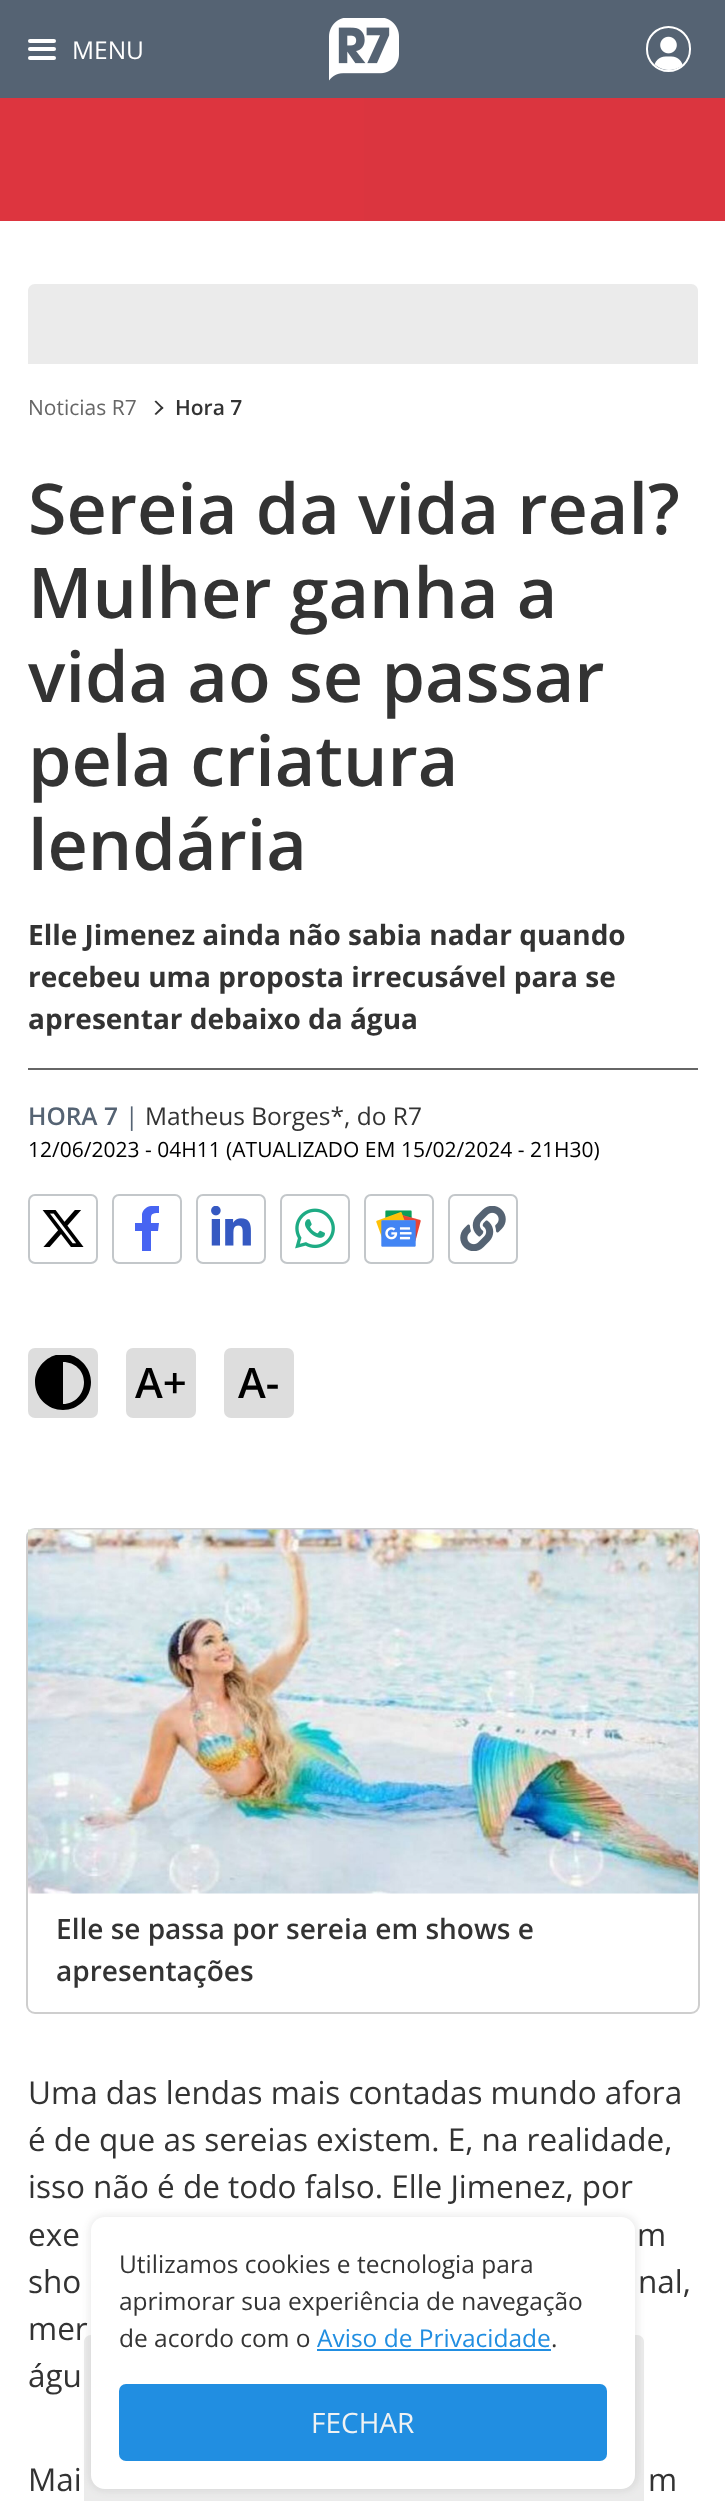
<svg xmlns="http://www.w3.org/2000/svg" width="725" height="2501">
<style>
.a{font:24.5px Open Sans;fill:#fff}
.b{font:21px Open Sans;fill:#666}
.c{font:600 21px Open Sans;fill:#333}
.d{font:600 70px Open Sans;fill:#333}
.e{font:bold 28px Open Sans;fill:#333}
.f{font:600 24.5px Open Sans;fill:#556373}
.g{font:24.5px Open Sans;fill:#556373}
.h{font:24.5px Open Sans;fill:#333}
.i{font:21px Open Sans;fill:#000}
.j{font:600 42px Open Sans;fill:#000}
.k{font:600 28px Open Sans;fill:#333}
.l{font:31.5px Open Sans;fill:#333}
.m{font:28px Open Sans;fill:#f0f2f3}
.n{font:24.5px Open Sans;fill:#218ee1}
</style>
<defs>
<clipPath id="clip1"><path d="M124 1206h46v45H124z"/></clipPath>
<clipPath id="clip2"><path d="M35 1355h56v56H35z"/></clipPath>
</defs>
<rect width="100%" height="100%" fill="#fff"/>
<path fill="#556373" d="M0 0h725v98H0z"/>
<rect fill="#fff" x="28" y="39" width="28" height="4" rx="2"/>
<rect fill="#fff" x="28" y="47" width="28" height="4" rx="2"/>
<rect fill="#fff" x="28" y="56" width="28" height="4" rx="2"/>
<image href="1.png" x="329" y="18" width="70" height="63"/>
<rect fill="none" stroke="#fff" stroke-width="2" x="647" y="27" width="43" height="44" rx="21.5"/>
<image href="2.png" x="654" y="36" width="29" height="34"/>
<path fill="#dd353f" d="M0 98h364v123H0z"/>
<path fill="#db353f" d="M364 98h361v123H364z"/>
<path fill="#ebebeb" d="M35 284h656c4 0 7 3 7 7v73h-670v-73c0-4 3-7 7-7z"/>
<path fill="#333" d="M156 400.5l7.5 7.5l-1.5 1l-7.5-7.5z"/>
<path fill="#333" d="M162 406.5l1.5 1.5l-7.5 7l-1.5-1z"/>
<path fill="#666" d="M28 1068h670v2H28z"/>
<rect fill="none" stroke="#c3c7ca" stroke-width="2" x="29" y="1195" width="68" height="68" rx="6"/>
<image href="3.png" x="42" y="1210" width="42" height="37"/>
<rect fill="none" stroke="#c3c7ca" stroke-width="2" x="113" y="1195" width="68" height="68" rx="6"/>
<g clip-path="url(#clip1)">
<path fill="#4764f2" d="M158 1231l1-8h-8c0-8-1-10 8-10v-7c-7-1-15 0-17 8v9h-7v8h7v20h9v-20z"/>
</g>
<rect fill="none" stroke="#c3c7ca" stroke-width="2" x="197" y="1195" width="68" height="68" rx="6"/>
<image href="4.png" x="211" y="1206" width="40" height="40"/>
<rect fill="none" stroke="#c3c7ca" stroke-width="2" x="281" y="1195" width="68" height="68" rx="6"/>
<image href="5.png" x="295" y="1208" width="40" height="41"/>
<rect fill="none" stroke="#c3c7ca" stroke-width="2" x="365" y="1195" width="68" height="68" rx="6"/>
<image href="6.png" x="376" y="1210" width="45" height="37"/>
<rect fill="none" stroke="#c3c7ca" stroke-width="2" x="449" y="1195" width="68" height="68" rx="6"/>
<image href="7.png" x="460" y="1206" width="46" height="45"/>
<rect fill="#ddd" x="28" y="1348" width="70" height="70" rx="7"/>
<g clip-path="url(#clip2)">
<path fill="#000" d="M84 1382c0-11-9-20-21-20v42c12 0 21-10 21-22zm-49 0c0-15 13-28 28-28c15 0 28 13 28 28c0 16-13 28-28 28c-15 0-28-12-28-28z"/>
</g>
<rect fill="#ddd" x="126" y="1348" width="70" height="70" rx="7"/>
<rect fill="#ddd" x="224" y="1348" width="70" height="70" rx="7"/>
<rect fill="none" stroke="#cecece" stroke-width="2" x="27" y="1529" width="672" height="484" rx="8"/>
<image href="8.png" x="28" y="1529" width="671" height="365"/>
<text class="a" x="72" y="59">MENU</text>
<text class="b" x="28" y="415">Noticias R7</text>
<text class="c" x="175" y="415">Hora 7</text>
<text class="d" x="28" y="534">Sereia da vida real?</text>
<text class="d" x="28" y="618">Mulher ganha a</text>
<text class="d" x="28" y="702">vida ao se passar</text>
<text class="d" x="28" y="786">pela criatura</text>
<text class="d" x="28" y="870">lendária</text>
<text class="e" x="28" y="945">Elle Jimenez ainda não sabia nadar quando</text>
<text class="e" x="28" y="987">recebeu uma proposta irrecusável para se</text>
<text class="e" x="28" y="1029">apresentar debaixo da água</text>
<text class="f" x="28" y="1125">HORA 7</text>
<text class="g" x="125" y="1125">|</text>
<text class="h" x="145" y="1125">Matheus Borges*, do R7</text>
<text class="i" x="28" y="1157">12/06/2023 - 04H11 (ATUALIZADO EM 15/02/2024 - 21H30)</text>
<text class="j" x="135" y="1398">A+</text>
<text class="j" x="238" y="1398">A-</text>
<text class="k" x="56" y="1939">Elle se passa por sereia em shows e</text>
<text class="k" x="56" y="1981">apresentações</text>
<text class="l" x="28" y="2104">Uma das lendas mais contadas mundo afora</text>
<text class="l" x="28" y="2151">é de que as sereias existem. E, na realidade,</text>
<text class="l" x="28" y="2198">isso não é de todo falso. Elle Jimenez, por</text>
<text class="l" x="28" y="2246">exe</text>
<text class="l" x="637" y="2246">m</text>
<text class="l" x="28" y="2293">sho</text>
<text class="l" x="638" y="2293">nal,</text>
<text class="l" x="28" y="2340">mer</text>
<text class="l" x="28" y="2387">águ</text>
<text class="l" x="28" y="2491">Mai</text>
<text class="l" x="648" y="2491">m</text>
<path fill="#ebebeb" d="M91 2335h546c4 0 7 3 7 7v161h-560v-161c0-4 3-7 7-7z"/>
<rect fill="#33333314" filter="blur(3px)" x="88" y="2214" width="551" height="278" rx="18"/>
<rect fill="#fff" x="91" y="2217" width="544" height="272" rx="14"/>
<rect fill="#218ee1" x="119" y="2384" width="488" height="77" rx="7"/>
<text class="m" x="311" y="2433">FECHAR</text>
<text class="h" x="551" y="2347">.</text>
<text class="n" x="317" y="2347">Aviso de Privacidade</text>
<path fill="#218ee1" d="M317 2349h234v2H317z"/>
<text class="h" x="119" y="2347">de acordo com o</text>
<text class="h" x="119" y="2310">aprimorar sua experiência de navegação</text>
<text class="h" x="119" y="2273">Utilizamos cookies e tecnologia para</text>
</svg>
